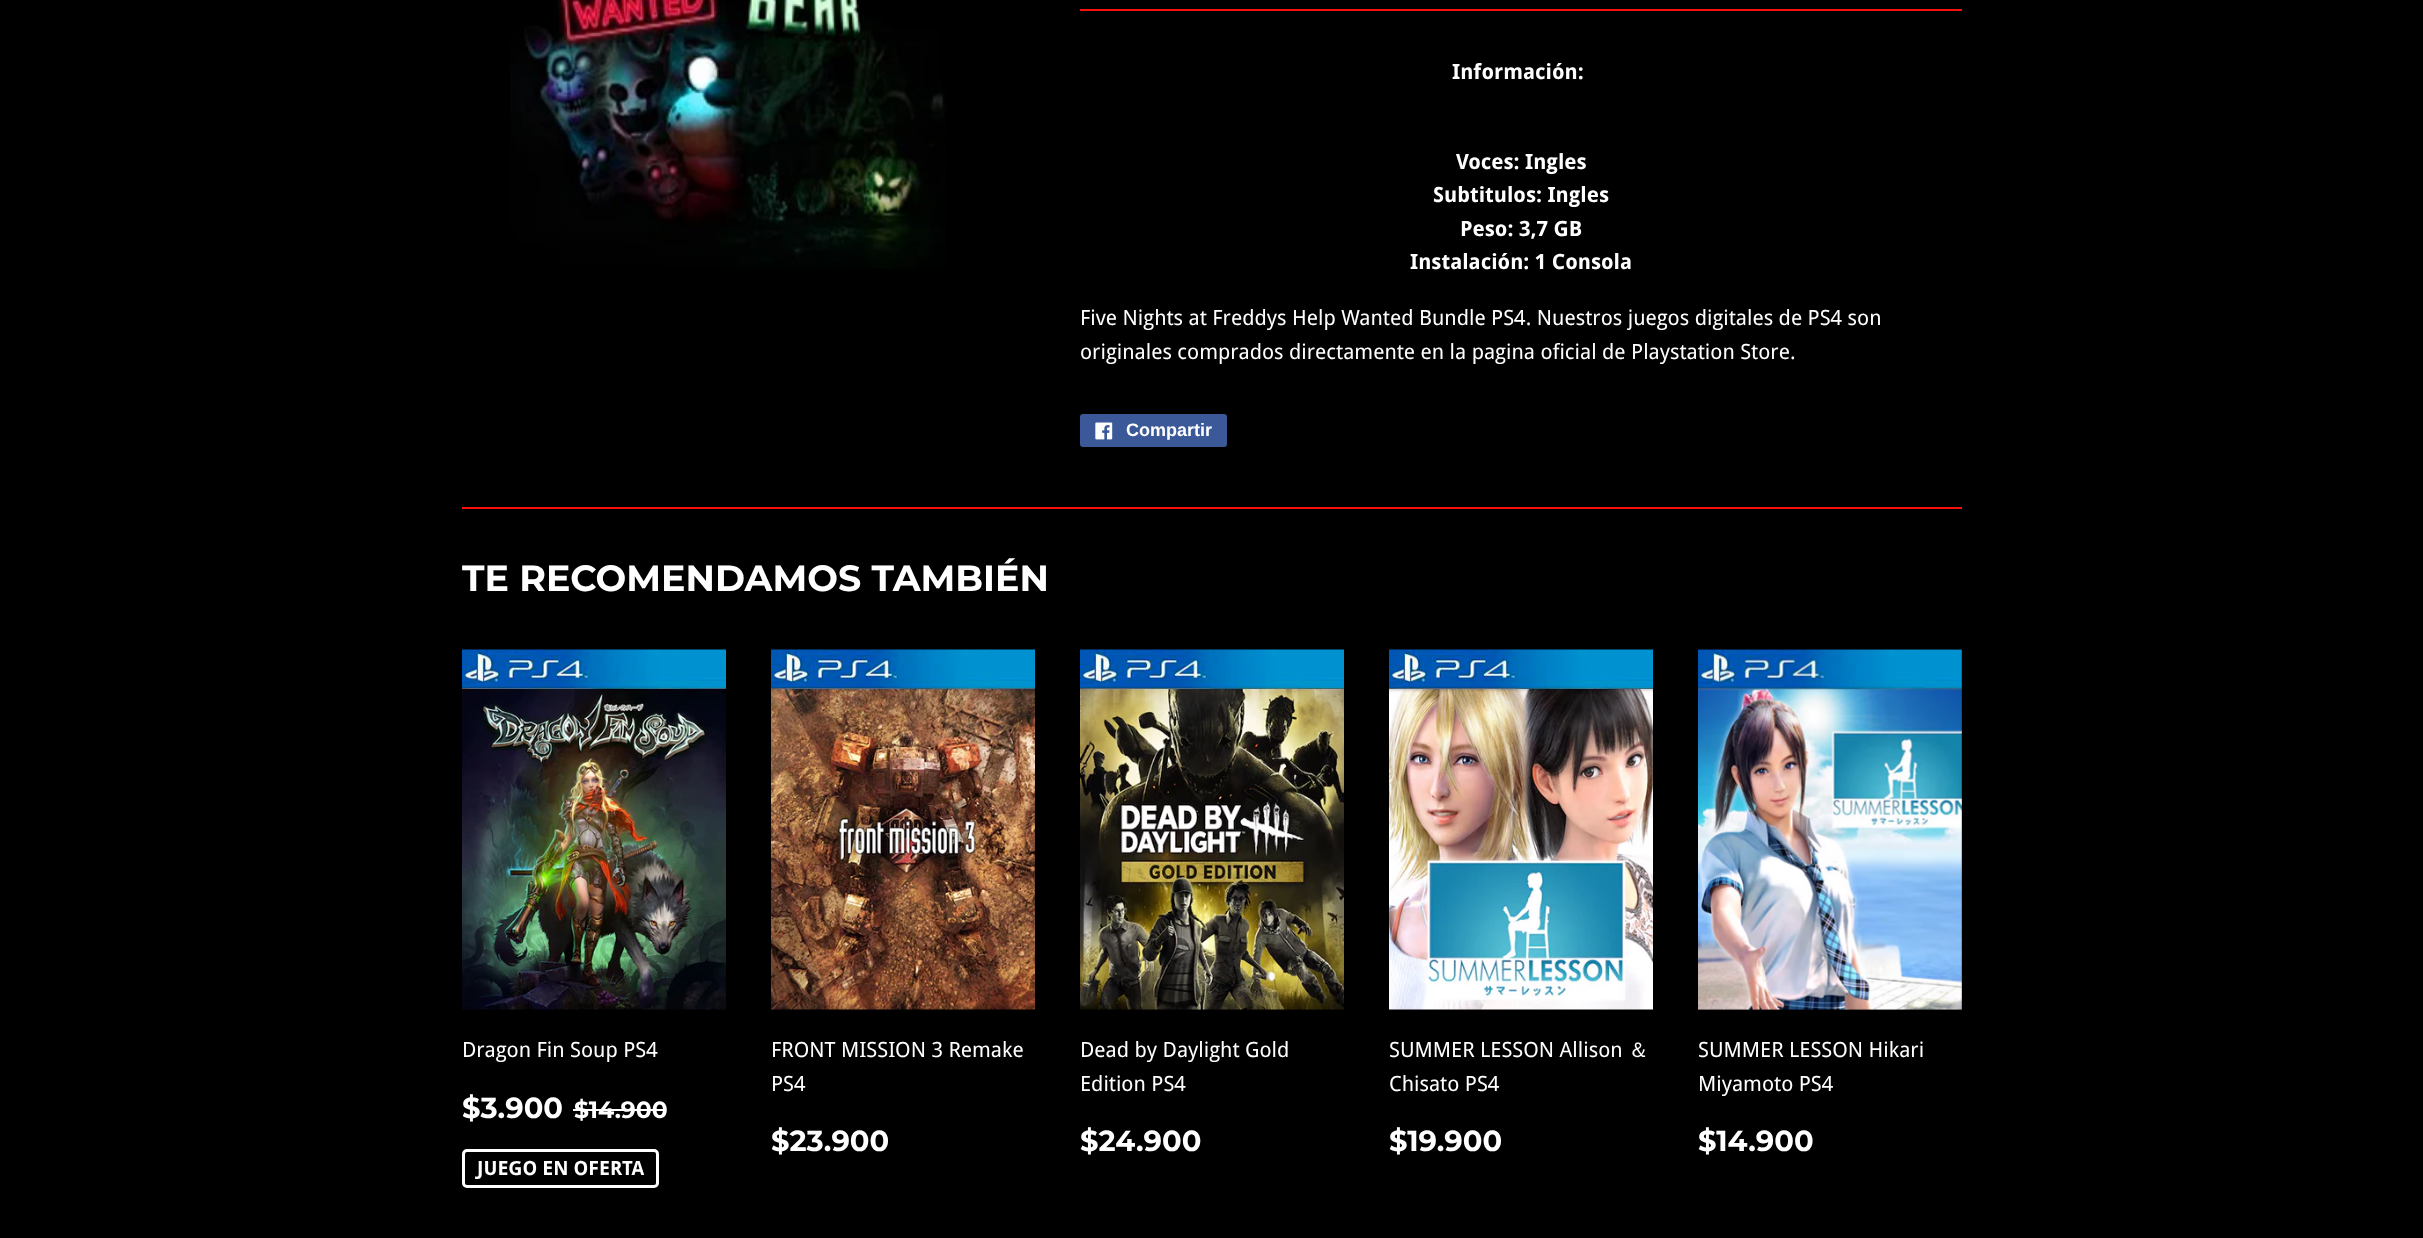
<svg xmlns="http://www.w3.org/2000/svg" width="2423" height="1238">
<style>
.a{font:bold 21px Droid Sans;fill:#fff}
.b{font:21px Droid Sans;fill:#fff}
.c{font:bold 18px Liberation Sans;fill:#fff}
.d{font:100 36.4px Montserrat;fill:#fff}
.e{font:100 29px Montserrat;fill:#fff}
.f{font:100 23.5px Montserrat;fill:#fff}
.g{font:bold 19.5px Droid Sans;fill:#fff}
.h{font:500 21px WenQuanYi Zen Hei;fill:#fff}
</style>
<rect width="100%" height="100%" fill="#000"/>
<image href="1.png" x="510" y="0" width="436" height="269"/>
<path fill="#fa0f0f" d="M1080 9h882v2H1080z"/>
<rect fill="#3b5998" x="1080" y="414" width="147" height="33" rx="3"/>
<image href="2.png" x="1095" y="422" width="18" height="18"/>
<path fill="#fa0f0f" d="M462 507h1500v2H462z"/>
<image href="3.png" x="462" y="649" width="264" height="361"/>
<path fill="#fff" d="M573 1109h93v2H573z"/>
<rect fill="none" stroke="#fff" stroke-width="3" x="463.5" y="1150.5" width="194" height="36" rx="3.5"/>
<image href="4.png" x="771" y="649" width="264" height="361"/>
<image href="5.png" x="1080" y="649" width="264" height="361"/>
<image href="6.png" x="1389" y="649" width="264" height="361"/>
<image href="7.png" x="1698" y="649" width="264" height="361"/>
<text class="a" x="1452" y="79">Información:</text>
<text class="a" x="1456" y="169">Voces: Ingles</text>
<text class="a" x="1433" y="202">Subtitulos: Ingles</text>
<text class="a" x="1460" y="236">Peso: 3,7 GB</text>
<text class="a" x="1410" y="269">Instalación: 1 Consola</text>
<text class="b" x="1080" y="325">Five Nights at Freddys Help Wanted Bundle PS4. Nuestros juegos digitales de PS4 son</text>
<text class="b" x="1080" y="359">originales comprados directamente en la pagina oficial de Playstation Store.</text>
<text class="c" x="1126" y="436">Compartir</text>
<text class="d" x="462" y="591">TE RECOMENDAMOS TAMBIÉN</text>
<text class="b" x="462" y="1057">Dragon Fin Soup PS4</text>
<text class="e" x="462" y="1118">$3.900</text>
<text class="f" x="574" y="1118">$14.900</text>
<text class="g" x="477" y="1175">JUEGO EN OFERTA</text>
<text class="b" x="771" y="1057">FRONT MISSION 3 Remake</text>
<text class="b" x="771" y="1091">PS4</text>
<text class="e" x="771" y="1151">$23.900</text>
<text class="b" x="1080" y="1057">Dead by Daylight Gold</text>
<text class="b" x="1080" y="1091">Edition PS4</text>
<text class="e" x="1080" y="1151">$24.900</text>
<text class="b" x="1389" y="1057">SUMMER LESSON Allison</text>
<text class="h" x="1628" y="1057">＆</text>
<text class="b" x="1389" y="1091">Chisato PS4</text>
<text class="e" x="1389" y="1151">$19.900</text>
<text class="b" x="1698" y="1057">SUMMER LESSON Hikari</text>
<text class="b" x="1698" y="1091">Miyamoto PS4</text>
<text class="e" x="1698" y="1151">$14.900</text>
</svg>
